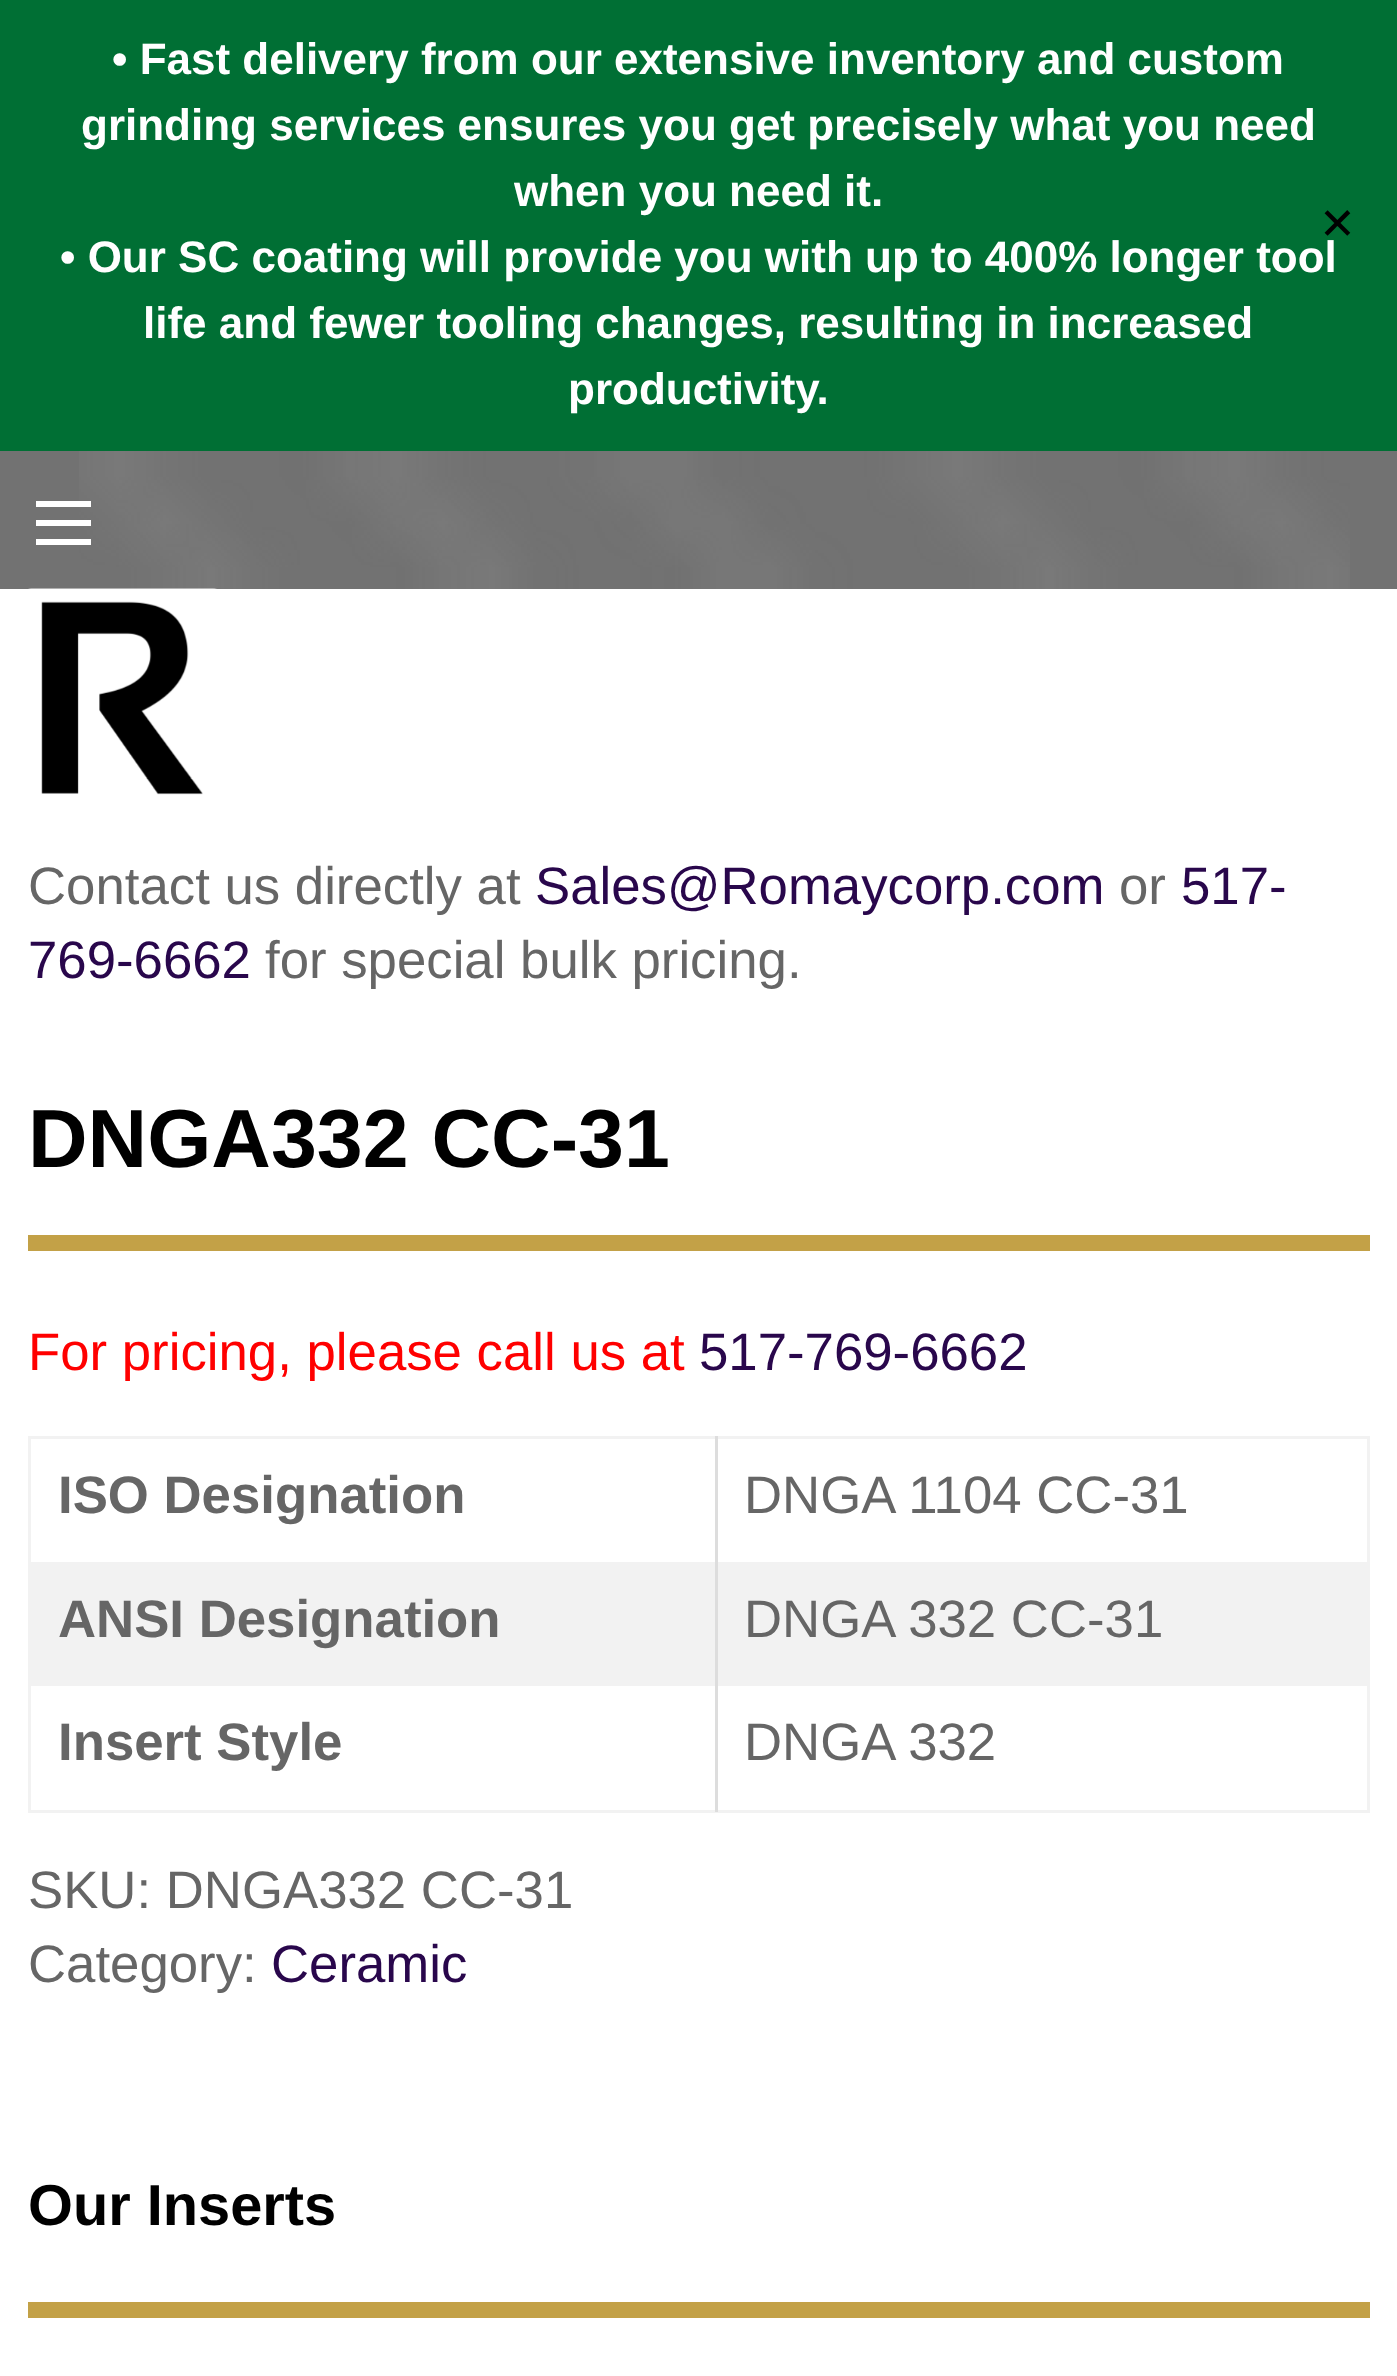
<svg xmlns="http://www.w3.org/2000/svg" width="1397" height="2376">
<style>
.a{font:bold 44px Liberation Sans;fill:#fff}
.b{font:44px DejaVu Sans;fill:#000}
.c{font:52.75px Liberation Sans;fill:#666}
.d{font:52.75px Liberation Sans;fill:#29074c}
.e{font:bold 82.5px Liberation Sans;fill:#000}
.f{font:52.75px Liberation Sans;fill:#f00}
.g{font:bold 52.75px Liberation Sans;fill:#666}
.h{font:bold 57.75px Liberation Sans;fill:#000}
</style>
<rect width="100%" height="100%" fill="#fff"/>
<path fill="#006f34" d="M0 0h1397v451H0z"/>
<path fill="#727272" d="M0 451h1397v138H0z"/>
<image href="1.png" x="79" y="451" width="1271" height="138"/>
<path fill="#fff" d="M36 539h55v6H36z"/>
<path fill="#fff" d="M36 520h55v6H36z"/>
<path fill="#fff" d="M36 501h55v6H36z"/>
<image href="2.png" x="28" y="588" width="189" height="207"/>
<path fill="#c3a147" d="M28 1235h1342v16H28z"/>
<path fill="#f2f2f2" d="M28 1436h1342v3H28z"/>
<path fill="#f2f2f2" d="M1367 1436h3v376H1367z"/>
<path fill="#f2f2f2" d="M28 1810h1342v3H28z"/>
<path fill="#f2f2f2" d="M28 1436h3v376H28z"/>
<path fill="#f2f2f2" d="M31 1562h1336v124H31z"/>
<path fill="#ddd" d="M715 1436h3v376H715z"/>
<path fill="#c3a147" d="M28 2302h1342v16H28z"/>
<text class="a" x="112" y="74">• Fast delivery from our extensive inventory and custom</text>
<text class="a" x="81" y="140">grinding services ensures you get precisely what you need</text>
<text class="a" x="514" y="206">when you need it.</text>
<text class="a" x="60" y="272">• Our SC coating will provide you with up to 400% longer tool</text>
<text class="a" x="143" y="338">life and fewer tooling changes, resulting in increased</text>
<text class="a" x="568" y="404">productivity.</text>
<text class="b" x="1319" y="239">✕</text>
<text class="c" x="28" y="904">Contact us directly at</text>
<text class="d" x="535" y="904">Sales@Romaycorp.com</text>
<text class="c" x="1119" y="904">or</text>
<text class="d" x="1181" y="904">517-</text>
<text class="d" x="28" y="978">769-6662</text>
<text class="c" x="265" y="978">for special bulk pricing.</text>
<text class="e" x="28" y="1167">DNGA332 CC-31</text>
<text class="f" x="28" y="1370">For pricing, please call us at</text>
<text class="d" x="699" y="1370">517-769-6662</text>
<text class="g" x="58" y="1513">ISO Designation</text>
<text class="c" x="744" y="1513">DNGA 1104 CC-31</text>
<text class="g" x="58" y="1637">ANSI Designation</text>
<text class="c" x="744" y="1637">DNGA 332 CC-31</text>
<text class="g" x="58" y="1760">Insert Style</text>
<text class="c" x="744" y="1760">DNGA 332</text>
<text class="c" x="28" y="1908">SKU: DNGA332 CC-31</text>
<text class="c" x="28" y="1982">Category:</text>
<text class="d" x="271" y="1982">Ceramic</text>
<text class="h" x="28" y="2225">Our Inserts</text>
</svg>
